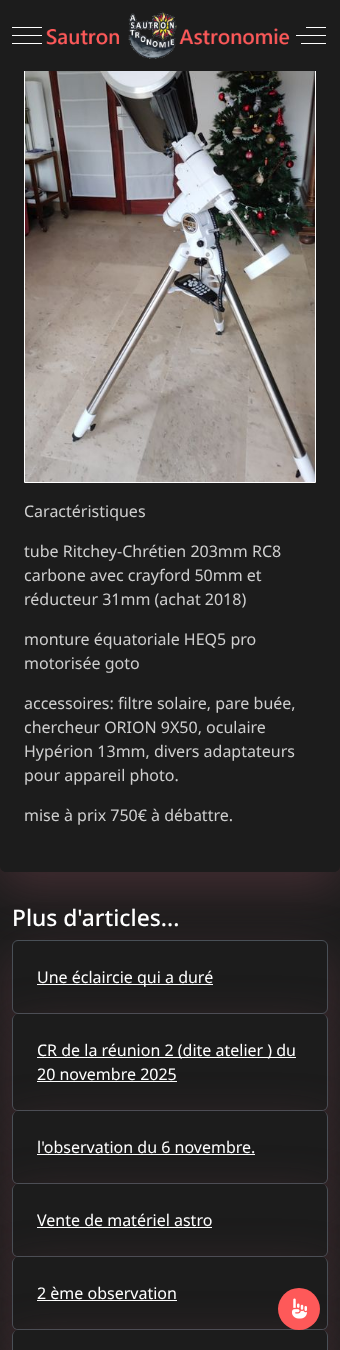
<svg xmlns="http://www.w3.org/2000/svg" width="340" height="1350">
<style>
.a{font:16px Noto Sans;fill:#cfcfcf}
.b{font:500 22.75px Noto Sans;fill:#fff}
.c{font:16px Noto Sans;fill:#fff}
</style>
<defs>
<clipPath id="clip1"><path d="M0 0h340v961h-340zm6-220h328c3.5 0 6 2.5 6 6v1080c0 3.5-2.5 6-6 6h-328c-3.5 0-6-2.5-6-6v-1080c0-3.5 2.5-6 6-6z" clip-rule="evenodd"/></clipPath>
</defs>
<rect width="100%" height="100%" fill="#1c1c1c"/>
<g clip-path="url(#clip1)">
<rect fill="#693e4780" filter="blur(24px)" y="-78" width="340" height="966" rx="6"/>
</g>
<path fill="none" stroke="#fff" d="M24.5 -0.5h291v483H24.5z"/>
<path fill="#1c1c1c" d="M24 0h292v71H24z"/>
<path fill="#fff" d="M12 35h30v1H12z"/>
<path fill="#fff" d="M12 27h30v1H12z"/>
<path fill="#fff" d="M12 43h30v1H12z"/>
<image href="1.png" x="46" y="11" width="244" height="48"/>
<path fill="#fff" d="M296 35h30v1H296z"/>
<path fill="#fff" d="M306 27h20v1H306z"/>
<path fill="#fff" d="M301 43h25v1H301z"/>
<image href="2.png" x="25" y="71" width="290" height="411"/>
<rect fill="#693e4780" filter="blur(24px)" x="12" y="956" width="316" height="74" rx="6"/>
<rect fill="#1c1c1c" stroke="#495057" x="12.5" y="940.5" width="315" height="73" rx="5.5"/>
<path fill="#fff" d="M37 984h176v1H37z"/>
<rect fill="#693e4780" filter="blur(24px)" x="12" y="1030" width="316" height="97" rx="6"/>
<path fill="#1c1c1c" d="M18 1014h304c3 0 5 3 5 6v85c0 3-2 5-5 5h-304c-3 0-5-2-5-5v-85c0-3 2-6 5-6z"/>
<path fill="#495057" fill-rule="evenodd" d="M18 1014h304c3 0 6 3 6 6v85c0 3-3 6-6 6h-304c-3 0-6-3-6-6v-85c0-3 3-6 6-6zm0 0h304c3 0 5 3 5 6v85c0 3-2 5-5 5h-304c-3 0-5-2-5-5v-85c0-3 2-6 5-6z"/>
<path fill="#fff" d="M37 1057h259v1H37z"/>
<path fill="#fff" d="M37 1081h140v1H37z"/>
<rect fill="#693e4780" filter="blur(24px)" x="12" y="1127" width="316" height="73" rx="6"/>
<path fill="#1c1c1c" d="M18 1111h304c3 0 5 3 5 6v61c0 3-2 5-5 5h-304c-3 0-5-2-5-5v-61c0-3 2-6 5-6z"/>
<path fill="#495057" fill-rule="evenodd" d="M18 1111h304c3 0 6 3 6 6v61c0 3-3 6-6 6h-304c-3 0-6-3-6-6v-61c0-3 3-6 6-6zm0 0h304c3 0 5 3 5 6v61c0 3-2 5-5 5h-304c-3 0-5-2-5-5v-61c0-3 2-6 5-6z"/>
<path fill="#fff" d="M37 1154h218v1H37z"/>
<rect fill="#693e4780" filter="blur(24px)" x="12" y="1200" width="316" height="73" rx="6"/>
<path fill="#1c1c1c" d="M18 1184h304c3 0 5 3 5 6v61c0 3-2 5-5 5h-304c-3 0-5-2-5-5v-61c0-3 2-6 5-6z"/>
<path fill="#495057" fill-rule="evenodd" d="M18 1184h304c3 0 6 3 6 6v61c0 3-3 6-6 6h-304c-3 0-6-3-6-6v-61c0-3 3-6 6-6zm0 0h304c3 0 5 3 5 6v61c0 3-2 5-5 5h-304c-3 0-5-2-5-5v-61c0-3 2-6 5-6z"/>
<path fill="#fff" d="M37 1227h175v1H37z"/>
<rect fill="#693e4780" filter="blur(24px)" x="12" y="1273" width="316" height="73" rx="6"/>
<path fill="#1c1c1c" d="M18 1257h304c3 0 5 3 5 6v61c0 3-2 5-5 5h-304c-3 0-5-2-5-5v-61c0-3 2-6 5-6z"/>
<path fill="#495057" fill-rule="evenodd" d="M18 1257h304c3 0 6 3 6 6v61c0 3-3 6-6 6h-304c-3 0-6-3-6-6v-61c0-3 3-6 6-6zm0 0h304c3 0 5 3 5 6v61c0 3-2 5-5 5h-304c-3 0-5-2-5-5v-61c0-3 2-6 5-6z"/>
<path fill="#fff" d="M37 1300h140v1H37z"/>
<rect fill="#693e4780" filter="blur(24px)" x="12" y="1346" width="316" height="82" rx="6"/>
<path fill="#1c1c1c" d="M18 1330h304c3 0 5 3 5 6v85c0 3-2 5-5 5h-304c-3 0-5-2-5-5v-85c0-3 2-6 5-6z"/>
<path fill="#495057" fill-rule="evenodd" d="M18 1330h304c3 0 6 3 6 6v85c0 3-3 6-6 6h-304c-3 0-6-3-6-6v-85c0-3 3-6 6-6zm0 0h304c3 0 5 3 5 6v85c0 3-2 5-5 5h-304c-3 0-5-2-5-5v-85c0-3 2-6 5-6z"/>
<circle fill="#fe5959" cx="299" cy="1309" r="21"/>
<image href="3.png" x="292" y="1298" width="15" height="21"/>
<text class="a" x="24" y="517">Caractéristiques</text>
<text class="a" x="24" y="557">tube Ritchey-Chrétien 203mm RC8</text>
<text class="a" x="24" y="581">carbone avec crayford 50mm et</text>
<text class="a" x="24" y="605">réducteur 31mm (achat 2018)</text>
<text class="a" x="24" y="645">monture équatoriale HEQ5 pro</text>
<text class="a" x="24" y="669">motorisée goto</text>
<text class="a" x="24" y="709">accessoires: filtre solaire, pare buée,</text>
<text class="a" x="24" y="733">chercheur ORION 9X50, oculaire</text>
<text class="a" x="24" y="757">Hypérion 13mm, divers adaptateurs</text>
<text class="a" x="24" y="781">pour appareil photo.</text>
<text class="a" x="24" y="821">mise à prix 750€ à débattre.</text>
<text class="b" x="12" y="926">Plus d'articles...</text>
<text class="c" x="37" y="983">Une éclaircie qui a duré</text>
<text class="c" x="37" y="1056">CR de la réunion 2 (dite atelier ) du</text>
<text class="c" x="37" y="1080">20 novembre 2025</text>
<text class="c" x="37" y="1153">l'observation du 6 novembre.</text>
<text class="c" x="37" y="1226">Vente de matériel astro</text>
<text class="c" x="37" y="1299">2 ème observation</text>
</svg>
